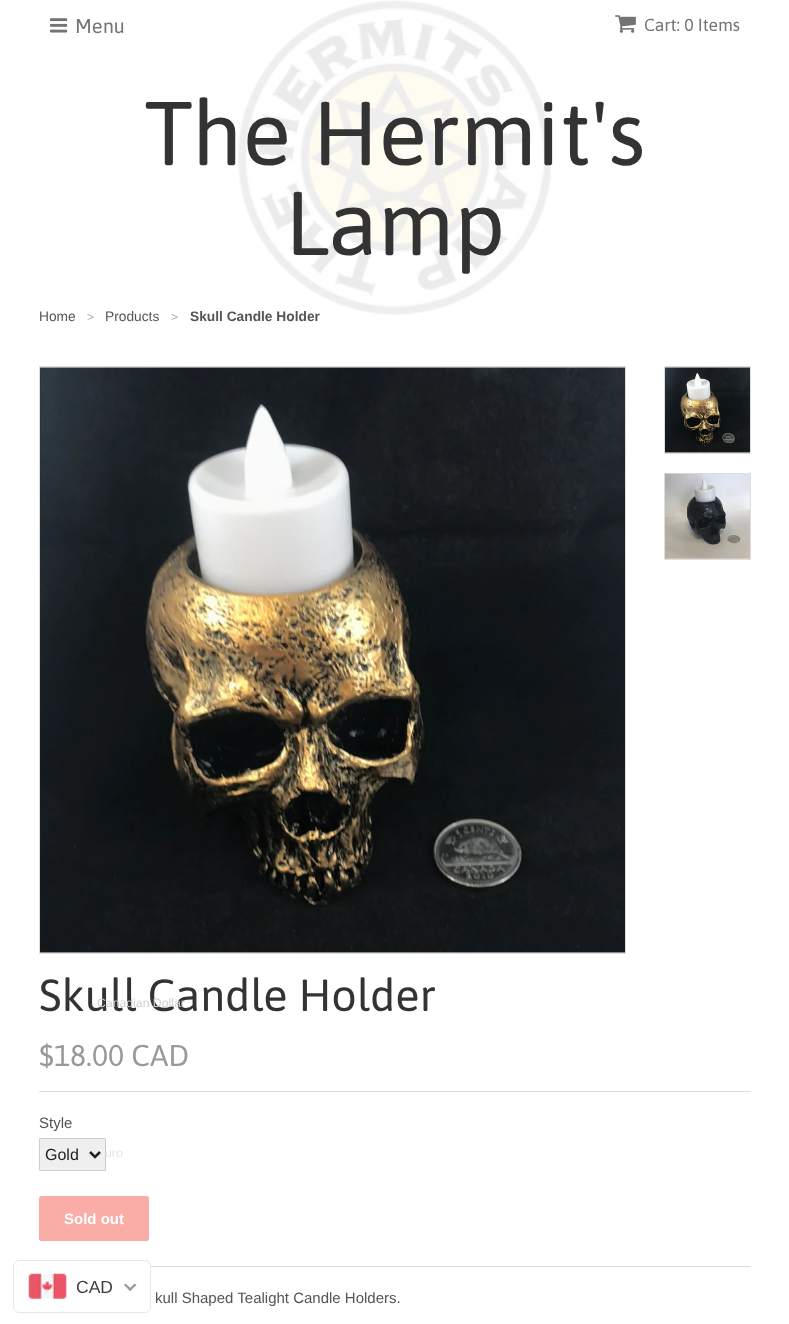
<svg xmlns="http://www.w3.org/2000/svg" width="789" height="1324">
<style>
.a{font:20px Asap;fill:#757474}
.b{font:17.5px Asap;fill:#757474}
.c{font:90px Asap;fill:#333}
.d{font:13.75px Liberation Sans;fill:#555}
.e{font:12px Liberation Sans;fill:#aaa}
.f{font:bold 13.75px Liberation Sans;fill:#555}
.g{font:45px Asap;fill:#333}
.h{font:30px Asap;fill:#999}
.i{font:15px Liberation Sans;fill:#555}
.j{font:16px Liberation Sans;fill:#222}
.k{font:bold 15px Liberation Sans;fill:#fff}
.l{font:12.25px Liberation Sans;fill:#d0d0d0}
.m{font:12.25px Liberation Sans;fill:#e6e6e6}
.n{font:17.5px Liberation Sans;fill:#403f3f}
</style>
<rect width="100%" height="100%" fill="#fff"/>
<image href="1.png" x="238" y="0" width="313" height="315"/>
<image href="2.png" x="50" y="18" width="18" height="15"/>
<image href="3.png" x="615" y="15" width="21" height="18"/>
<path fill="none" stroke="#ddd" d="M39.5 366.5h586v587H39.5z"/>
<image href="4.png" x="40" y="367" width="585" height="586"/>
<path fill="none" stroke="#ddd" d="M664.5 366.5h86v87H664.5z"/>
<image href="5.png" x="665" y="367" width="85" height="86"/>
<path fill="none" stroke="#ddd" d="M664.5 473.5h86v86H664.5z"/>
<image href="6.png" x="665" y="473" width="85" height="86"/>
<path fill="#ddd" d="M39 1091h712v1H39z"/>
<path fill="#ddd" d="M151 1266h600v1H151z"/>
<rect fill="#efefef" stroke="#ccc" x="39.5" y="1138.5" width="66" height="32" rx="0.5"/>
<path fill="none" stroke="#222" stroke-width="2.5" d="M90 1152l5 5l5-5"/>
<rect fill="#faada7" x="39" y="1196" width="110" height="45" rx="2.5"/>
<rect fill="none" stroke="#e8e8e8" x="13.5" y="1260.5" width="137" height="52" rx="5.5"/>
<image href="7.png" x="28" y="1273" width="39" height="26"/>
<path fill="#999" d="M134.5 1283.5l2 1.5l-6.5 6l-1.5-1.5z"/>
<path fill="#999" d="M125.5 1283.5l6.5 6l-2 1.5l-6-6z"/>
<text class="a" x="75" y="33">Menu</text>
<text class="b" x="644" y="31">Cart: 0 Items</text>
<text class="c" x="144" y="165">The Hermit's</text>
<text class="c" x="285" y="255">Lamp</text>
<text class="d" x="39" y="321">Home</text>
<text class="e" x="87" y="321">&gt;</text>
<text class="d" x="105" y="321">Products</text>
<text class="e" x="171" y="321">&gt;</text>
<text class="f" x="190" y="321">Skull Candle Holder</text>
<text class="g" x="39" y="1011">Skull Candle Holder</text>
<text class="h" x="39" y="1066">$18.00 CAD</text>
<text class="i" x="39" y="1128">Style</text>
<text class="j" x="45" y="1160">Gold</text>
<text class="k" x="64" y="1224">Sold out</text>
<text class="i" x="155" y="1303">kull Shaped Tealight Candle Holders.</text>
<text class="l" x="97" y="1007">Canadian Dollar</text>
<text class="m" x="105" y="1157">uro</text>
<text class="n" x="76" y="1293">CAD</text>
</svg>
